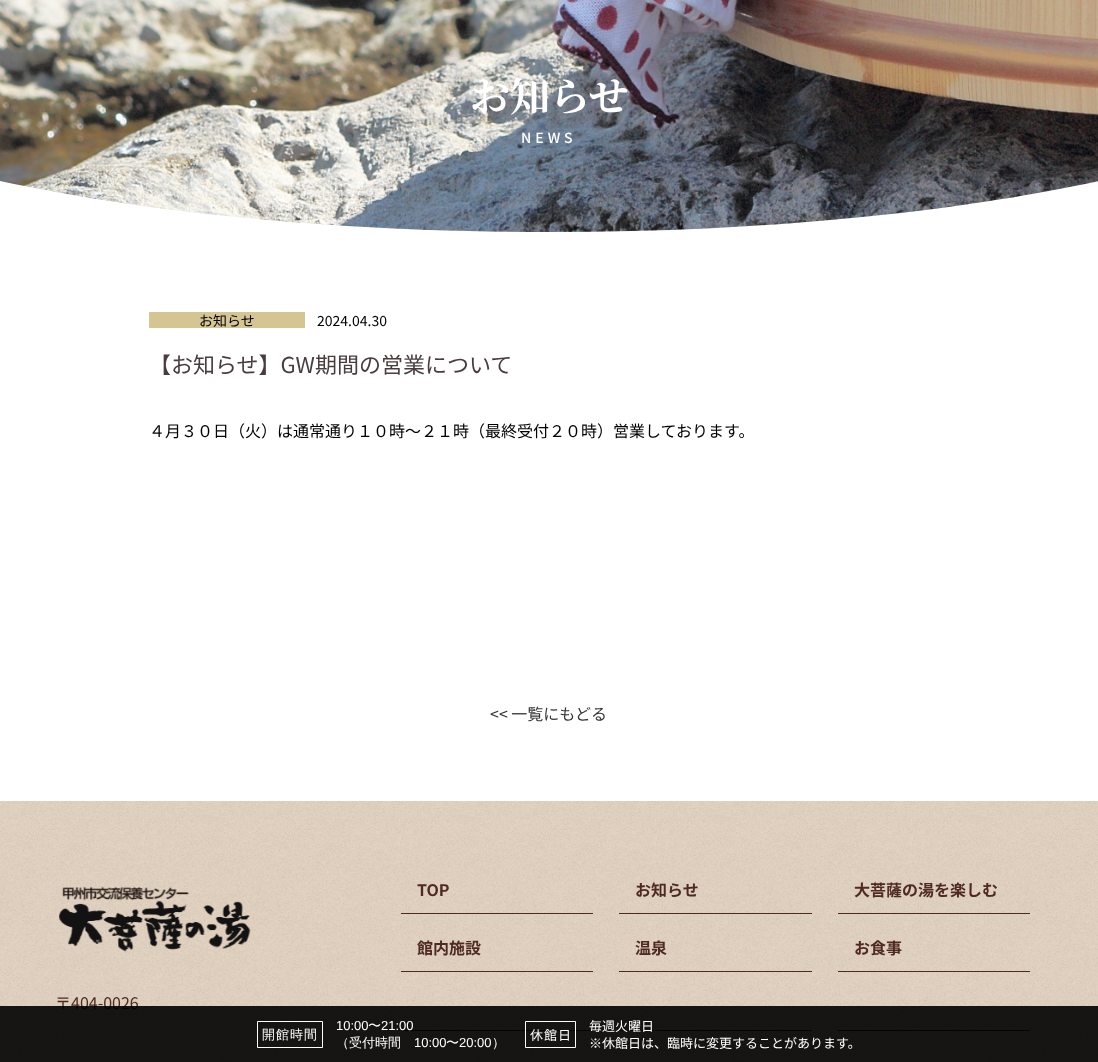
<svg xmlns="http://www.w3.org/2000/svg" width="1098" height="1062">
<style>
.a{font:bold 40px Noto Serif JP;fill:#fff}
.b{font:500 14px Noto Sans JP;letter-spacing:4px;fill:#fff}
.c{font:14px Noto Sans JP;fill:#000}
.d{font:22px Noto Sans JP;fill:#483c3e}
.e{font:16px Noto Sans JP;fill:#000}
.f{font:16px Noto Sans JP;fill:#363636}
.g{font:bold 16px Noto Sans JP;fill:#4f2a22}
.h{font:16px Noto Sans JP;fill:#4f2a22}
.i{font:500 13px WenQuanYi Zen Hei;letter-spacing:1px;fill:#fff}
.j{font:13px Liberation Sans;fill:#fff}
.k{font:500 13px WenQuanYi Zen Hei;fill:#fff}
.l{font:13px Noto Sans JP;letter-spacing:1px;fill:#fff}
.m{font:13px Noto Sans JP;fill:#fff}
</style>
<rect width="100%" height="100%" fill="#fff"/>
<path fill="#eee" d="M-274-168h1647v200c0 110-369 200-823 200c-455 0-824-90-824-200z"/>
<image href="1.png" x="0" y="0" width="1098" height="232"/>
<path fill="#d5c593" d="M149 312h156v16H149z"/>
<image href="2.png" x="0" y="801" width="1098" height="261"/>
<path fill="#4f2a22" d="M401 913h192v1H401z"/>
<path fill="#4f2a22" d="M619 913h193v1H619z"/>
<path fill="#4f2a22" d="M838 913h192v1H838z"/>
<path fill="#4f2a22" d="M401 971h192v1H401z"/>
<path fill="#4f2a22" d="M619 971h193v1H619z"/>
<path fill="#4f2a22" d="M838 971h192v1H838z"/>
<path fill="#4f2a22" d="M401 1030h192v1H401z"/>
<path fill="#4f2a22" d="M619 1030h193v1H619z"/>
<path fill="#4f2a22" d="M838 1030h192v1H838z"/>
<image href="3.png" x="59" y="886" width="192" height="66"/>
<text class="a" x="470" y="111">お知らせ</text>
<text class="b" x="521" y="143">NEWS</text>
<text class="c" x="199" y="326">お知らせ</text>
<text class="c" x="317" y="326">2024.04.30</text>
<text class="d" x="149" y="373">【お知らせ】GW期間の営業について</text>
<text class="e" x="149" y="437">４月３０日（火）は通常通り１０時～２１時（最終受付２０時）営業しております。</text>
<text class="f" x="490" y="720">&lt;&lt; 一覧にもどる</text>
<text class="g" x="417" y="896">TOP</text>
<text class="g" x="635" y="896">お知らせ</text>
<text class="g" x="854" y="896">大菩薩の湯を楽しむ</text>
<text class="g" x="417" y="954">館内施設</text>
<text class="g" x="635" y="954">温泉</text>
<text class="g" x="854" y="954">お食事</text>
<text class="h" x="55" y="1009">〒404-0026</text>
<path fill="#000000e6" d="M0 1006h1098v56H0z"/>
<path fill="none" stroke="#fff" d="M257.5 1021.5h65v26H257.5z"/>
<text class="i" x="262" y="1039">開館時間</text>
<text class="j" x="336" y="1030">10:00</text>
<text class="k" x="368" y="1030">〜</text>
<text class="j" x="381" y="1030">21:00</text>
<text class="k" x="336" y="1047">（受付時間</text>
<text class="j" x="414" y="1047">10:00</text>
<text class="k" x="446" y="1047">〜</text>
<text class="j" x="459" y="1047">20:00</text>
<text class="k" x="492" y="1047">）</text>
<path fill="none" stroke="#fff" d="M525.5 1021.5h50v26H525.5z"/>
<text class="l" x="530" y="1040">休館日</text>
<text class="m" x="589" y="1031">毎週火曜日</text>
<text class="m" x="589" y="1048">※休館日は、臨時に変更することがあります。</text>
</svg>
